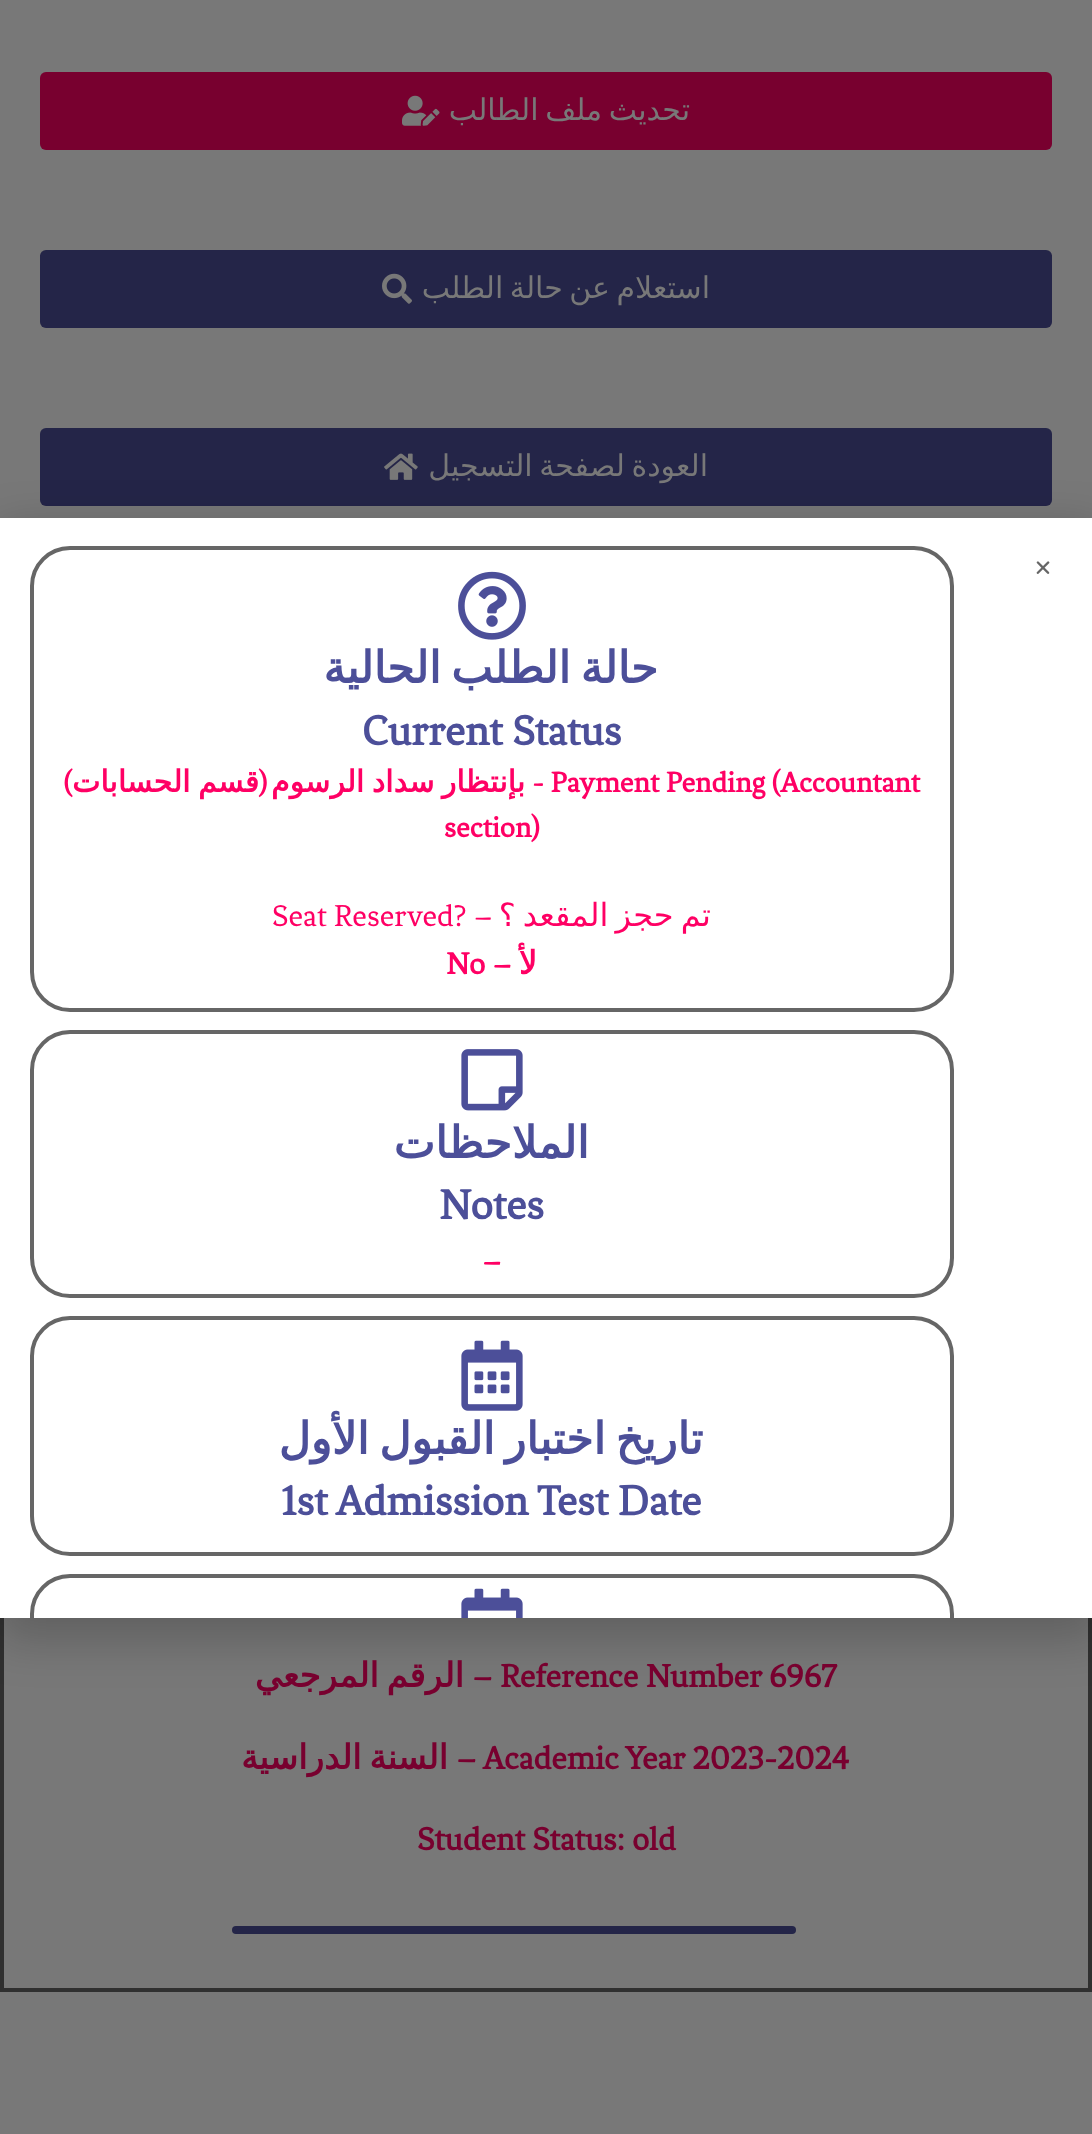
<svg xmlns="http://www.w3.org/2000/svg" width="1092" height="2134">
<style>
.a{font:30px DejaVu Sans;direction:rtl;fill:#787878}
.b{font:bold 34px Fenix;fill:#78002f}
.c{font:bold 34px DejaVu Sans;direction:rtl;fill:#78002f}
.d{font:bold 44px DejaVu Sans;direction:rtl;fill:#4c4f99}
.e{font:bold 44px Fenix;fill:#4c4f99}
.f{font:bold 30px Fenix;fill:#ff0064}
.g{font:bold 30px DejaVu Sans;direction:rtl;fill:#ff0064}
.h{font:bold 30px Fenix;direction:rtl;fill:#ff0064}
.i{font:32px DejaVu Sans;direction:rtl;fill:#ff0064}
.j{font:32px Fenix;fill:#ff0064}
.k{font:bold 32px DejaVu Sans;direction:rtl;fill:#ff0064}
.l{font:bold 32px Fenix;fill:#ff0064}
</style>
<defs>
<clipPath id="clip1"><path d="M0 518h982v1100H0z"/></clipPath>
</defs>
<rect width="100%" height="100%" fill="#787878"/>
<rect fill="#78002f" x="40" y="72" width="1012" height="78" rx="6"/>
<image href="1.png" x="402" y="95" width="38" height="31"/>
<rect fill="#242548" x="40" y="250" width="1012" height="78" rx="6"/>
<image href="2.png" x="382" y="273" width="30" height="31"/>
<rect fill="#242548" x="40" y="428" width="1012" height="78" rx="6"/>
<image href="3.png" x="384" y="453" width="34" height="27"/>
<path fill="none" stroke="#303030" stroke-width="4" d="M2 558h1088v1432H2z"/>
<rect fill="#242548" x="232" y="1926" width="564" height="8" rx="4"/>
<path fill="#00000033" filter="blur(23px)" d="M-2 528h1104v1112H-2z"/>
<path fill="#fff" d="M0 518h1092v1100H0z"/>
<image href="4.png" x="1036" y="561" width="14" height="13"/>
<rect fill="none" stroke="#666" stroke-width="4" x="32" y="548" width="920" height="462" rx="38"/>
<image href="5.png" x="458" y="571" width="68" height="69"/>
<rect fill="none" stroke="#666" stroke-width="4" x="32" y="1032" width="920" height="264" rx="38"/>
<image href="6.png" x="461" y="1049" width="62" height="62"/>
<rect fill="none" stroke="#666" stroke-width="4" x="32" y="1318" width="920" height="236" rx="38"/>
<image href="7.png" x="461" y="1340" width="62" height="71"/>
<text class="a" x="690" y="120" word-spacing="-3">تحديث ملف الطالب</text>
<text class="a" x="710" y="298" word-spacing="-3">استعلام عن حالة الطلب</text>
<text class="a" x="708" y="476" word-spacing="-3">العودة لصفحة التسجيل</text>
<text class="b" x="472" y="1687">– Reference Number 6967</text>
<text class="c" x="464" y="1687" word-spacing="-3">الرقم المرجعي</text>
<text class="b" x="456" y="1769">– Academic Year 2023-2024</text>
<text class="c" x="448" y="1769" word-spacing="-3">السنة الدراسية</text>
<text class="b" x="417" y="1850">Student Status: old</text>
<text class="d" x="658" y="683" word-spacing="-4">حالة الطلب الحالية</text>
<text class="e" x="362" y="745">Current Status</text>
<text class="f" x="532" y="792">- Payment Pending (Accountant</text>
<text class="g" x="525" y="792" word-spacing="-2">بإنتظار سداد الرسوم</text>
<text class="h" x="267" y="792">(</text>
<text class="g" x="259" y="792" word-spacing="-2">قسم الحسابات</text>
<text class="h" x="72" y="792">)</text>
<text class="f" x="444" y="837">section)</text>
<text class="i" x="711" y="926" word-spacing="-3">تم حجز المقعد ؟</text>
<text class="j" x="272" y="926">Seat Reserved? –</text>
<text class="k" x="537" y="974">لأ</text>
<text class="l" x="446" y="974">No –</text>
<text class="d" x="589" y="1158">الملاحظات</text>
<text class="e" x="439" y="1219">Notes</text>
<text class="l" x="482" y="1271">–</text>
<text class="d" x="703" y="1454" word-spacing="-4">تاريخ اختبار القبول الأول</text>
<text class="e" x="281" y="1515">1st Admission Test Date</text>
<g clip-path="url(#clip1)">
<rect fill="none" stroke="#666" stroke-width="4" x="32" y="1576" width="920" height="262" rx="38"/>
</g>
<image href="8.png" x="461" y="1588" width="62" height="30"/>
</svg>
